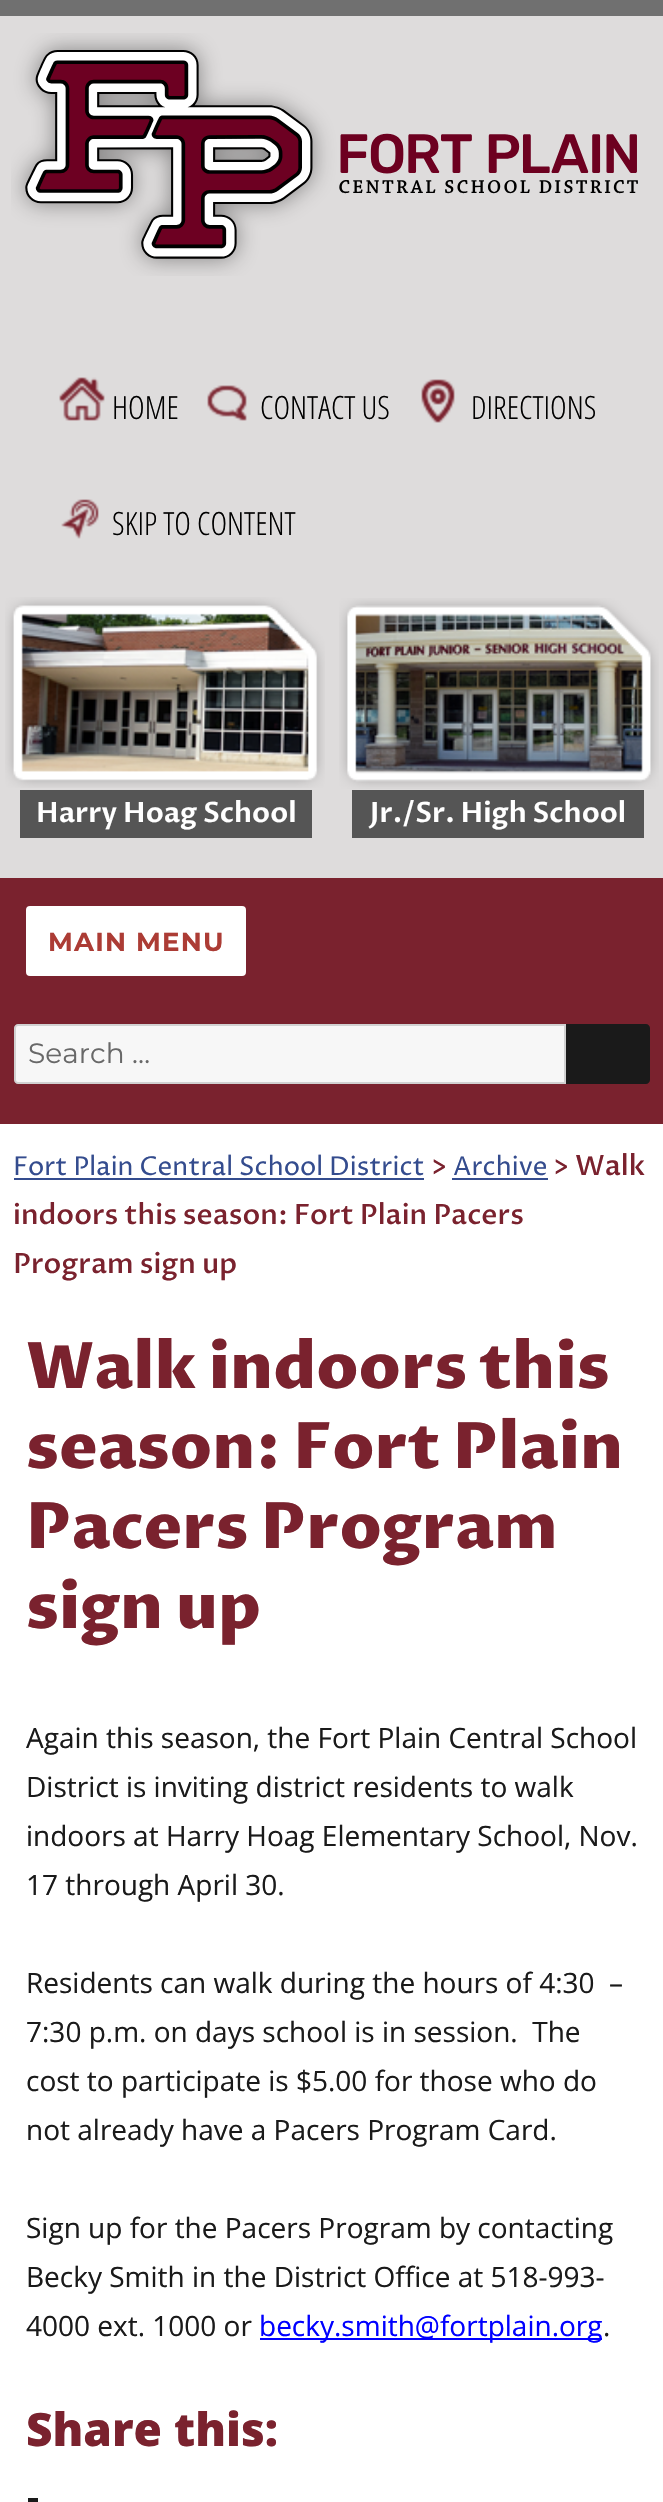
#include "include/core/SkBlurTypes.h"
#include "include/core/SkCanvas.h"
#include "include/core/SkData.h"
#include "include/core/SkFont.h"
#include "include/core/SkFontMgr.h"
#include "include/core/SkImage.h"
#include "include/core/SkMaskFilter.h"
#include "include/core/SkPaint.h"
#include "include/core/SkPathBuilder.h"
#include "include/core/SkTextBlob.h"
#include "include/effects/SkDashPathEffect.h"
#include "include/effects/SkGradientShader.h"
#include "include/utils/SkParsePath.h"

extern sk_sp<SkFontMgr> fontMgr;

static SkFont font(const char* family, int weight, float size, bool italic = false) {
    SkFontStyle style(weight, SkFontStyle::kNormal_Width,
        italic ? SkFontStyle::kItalic_Slant : SkFontStyle::kUpright_Slant);
    SkFont result(fontMgr->matchFamilyStyle(family, style), size);
    result.setSubpixel(true);
    return result;
}

static void drawLabel(SkCanvas* canvas, const char* s, float x, float y, const SkFont& font, SkColor color) {
    SkPaint ink(SkColor4f::FromColor(color));
    ink.setAntiAlias(true);
    canvas->drawString(s, x, y, font, ink);
}

static void drawTracked(SkCanvas* canvas, const char* s, float x, float y, const SkFont& font, const SkPaint& ink, float letter, float word) {
    std::vector<SkGlyphID> glyphs(font.countText(s, strlen(s), SkTextEncoding::kUTF8));
    std::vector<float> xs(glyphs.size());
    font.textToGlyphs(s, strlen(s), SkTextEncoding::kUTF8, glyphs);
    font.getXPos(glyphs, xs, x);
    float extra = 0;
    for (size_t i = 0; i < glyphs.size(); i++) {
        xs[i] += extra;
        extra += letter + word * (glyphs[i] == font.unicharToGlyph(' '));
    }
    canvas->drawTextBlob(SkTextBlob::MakeFromPosHGlyphs(glyphs, xs, y, font), 0, 0, ink);
}

static void fillRect(SkCanvas* canvas, float x, float y, float w, float h, SkColor color) {
    SkPaint ink(SkColor4f::FromColor(color));
    ink.setAntiAlias(true);
    canvas->drawRect(SkRect::MakeXYWH(x, y, w, h), ink);
}

static void drawPhoto(SkCanvas* canvas, const char* path, float x, float y, float w, float h) {
    auto image = SkImages::DeferredFromEncodedData(SkData::MakeFromFileName(path));
    canvas->drawImageRect(image, SkRect::MakeXYWH(x, y, w, h), SkSamplingOptions());
}

static SkPath parsePath(const char* data, bool evenOdd = false) {
    SkPath result = *SkParsePath::FromSVGString(data);
    if (evenOdd) result.setFillType(SkPathFillType::kEvenOdd);
    return result;
}

void draw(SkCanvas* canvas) {
    SkPaint paint;
    paint.setAntiAlias(true);
    canvas->clear(0xFF7A222E);
    fillRect(canvas, 0, 16, 663, 862, 0xFFDEDCDC);
    fillRect(canvas, 0, 0, 663, 16, 0xFF707070);
    drawPhoto(canvas, "assets/img1.png", 11, 33, 627, 243);
    drawPhoto(canvas, "assets/img2.png", 59, 377, 46, 44);
    SkFont font1 = font("Open Sans Condensed", 300, 32);
    drawLabel(canvas, "HOME", 112, 419, font1, 0xFF000000);
    drawPhoto(canvas, "assets/img3.png", 207, 385, 40, 36);
    drawLabel(canvas, "CONTACT US", 260, 419, font1, 0xFF000000);
    drawPhoto(canvas, "assets/img4.png", 421, 379, 34, 44);
    drawLabel(canvas, "DIRECTIONS", 471, 419, font1, 0xFF000000);
    drawPhoto(canvas, "assets/img5.png", 61, 499, 38, 40);
    drawLabel(canvas, "SKIP TO CONTENT", 112, 535, font1, 0xFF000000);
    drawPhoto(canvas, "assets/img6.png", 5, 597, 320, 191);
    fillRect(canvas, 20, 790, 292, 48, 0xFF555555);
    SkFont font2 = font("Proza Libre", 600, 28);
    drawLabel(canvas, "Harry Hoag School", 36, 822, font2, 0xFFFFFFFF);
    drawPhoto(canvas, "assets/img7.png", 339, 598, 320, 191);
    fillRect(canvas, 352, 790, 292, 48, 0xFF555555);
    drawLabel(canvas, "Jr./Sr. High School", 370, 822, font2, 0xFFFFFFFF);
    paint.setColor(0xFFFFFFFF);
    canvas->drawRoundRect(SkRect::MakeXYWH(27, 907, 218, 68), 3, 3, paint);
    paint.setStroke(true);
    paint.setStrokeWidth(2);
    canvas->drawRoundRect(SkRect::MakeXYWH(27, 907, 218, 68), 3, 3, paint);
    SkFont font3 = font("Montserrat", 100, 26);
    paint.setStroke(false);
    paint.setColor(0xFFAC3C35);
    drawTracked(canvas, "MAIN MENU", 48, 951, font3, paint, 1.25f, 0);
    paint.setColor(0xFFF7F7F7);
    canvas->drawPath(parsePath("M18 1025H565V1083H18C16.5 1083 15 1081.5 15 1080V1028C15 1026.5 16.5 1025 18 1025Z"), paint);
    paint.setStroke(true);
    paint.setColor(0xFFD1D1D1);
    canvas->drawPath(parsePath("M18 1025H565V1083H18C16.5 1083 15 1081.5 15 1080V1028C15 1026.5 16.5 1025 18 1025Z"), paint);
    SkFont font4 = font("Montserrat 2", 100, 28);
    drawLabel(canvas, "Search …", 28, 1063, font4, 0xFF686868);
    paint.setStroke(false);
    paint.setColor(0xFF1A1A1A);
    canvas->drawPath(parsePath("M566 1024H646C648 1024 650 1026 650 1028V1080C650 1082 648 1084 646 1084H566Z"), paint);
    fillRect(canvas, 0, 1124, 663, 1378, 0xFFFFFFFF);
    SkFont font5 = font("Proza Libre", 400, 26);
    drawLabel(canvas, "Fort Plain Central School District", 13, 1175, font5, 0xFF344C8E);
    fillRect(canvas, 14, 1178, 410, 2, 0xFF344C8E);
    SkFont font6 = font("Proza Libre", 500, 28);
    drawLabel(canvas, ">", 431, 1175, font6, 0xFF7A222E);
    drawLabel(canvas, "Archive", 453, 1175, font5, 0xFF344C8E);
    fillRect(canvas, 452, 1178, 96, 2, 0xFF344C8E);
    drawLabel(canvas, "> Walk", 553, 1175, font6, 0xFF7A222E);
    drawLabel(canvas, "indoors this season: Fort Plain Pacers", 13, 1224, font6, 0xFF7A222E);
    drawLabel(canvas, "Program sign up", 13, 1273, font6, 0xFF7A222E);
    SkFont font7 = font("Proza Libre", 800, 64);
    drawLabel(canvas, "Walk indoors this", 26, 1388, font7, 0xFF7A222E);
    drawLabel(canvas, "season: Fort Plain", 26, 1468, font7, 0xFF7A222E);
    drawLabel(canvas, "Pacers Program", 26, 1548, font7, 0xFF7A222E);
    drawLabel(canvas, "sign up", 26, 1628, font7, 0xFF7A222E);
    SkFont font8 = font("Open Sans", 400, 28);
    drawLabel(canvas, "Again this season, the Fort Plain Central School", 26, 1748, font8, 0xFF1A1A1A);
    drawLabel(canvas, "District is inviting district residents to walk", 26, 1797, font8, 0xFF1A1A1A);
    drawLabel(canvas, "indoors at Harry Hoag Elementary School, Nov.", 26, 1846, font8, 0xFF1A1A1A);
    drawLabel(canvas, "17 through April 30.", 26, 1895, font8, 0xFF1A1A1A);
    drawLabel(canvas, "Residents can walk during the hours of 4:30  –", 26, 1993, font8, 0xFF1A1A1A);
    drawLabel(canvas, "7:30 p.m. on days school is in session.  The", 26, 2042, font8, 0xFF1A1A1A);
    drawLabel(canvas, "cost to participate is $5.00 for those who do", 26, 2091, font8, 0xFF1A1A1A);
    drawLabel(canvas, "not already have a Pacers Program Card.", 26, 2140, font8, 0xFF1A1A1A);
    drawLabel(canvas, "Sign up for the Pacers Program by contacting", 26, 2238, font8, 0xFF1A1A1A);
    drawLabel(canvas, "Becky Smith in the District Office at 518-993-", 26, 2287, font8, 0xFF1A1A1A);
    drawLabel(canvas, "4000 ext. 1000 or", 26, 2336, font8, 0xFF1A1A1A);
    fillRect(canvas, 260, 2338, 342, 2, 0xFF0000FF);
    drawLabel(canvas, "becky.smith@fortplain.org", 259, 2336, font8, 0xFF0000FF);
    drawLabel(canvas, ".", 603, 2336, font8, 0xFF1A1A1A);
    SkFont font9 = font("Open Sans", 800, 46);
    drawLabel(canvas, "Share this:", 26, 2446, font9, 0xFF7A222E);
    fillRect(canvas, 28, 2498, 10, 4, 0xFF1A1A1A);
}
